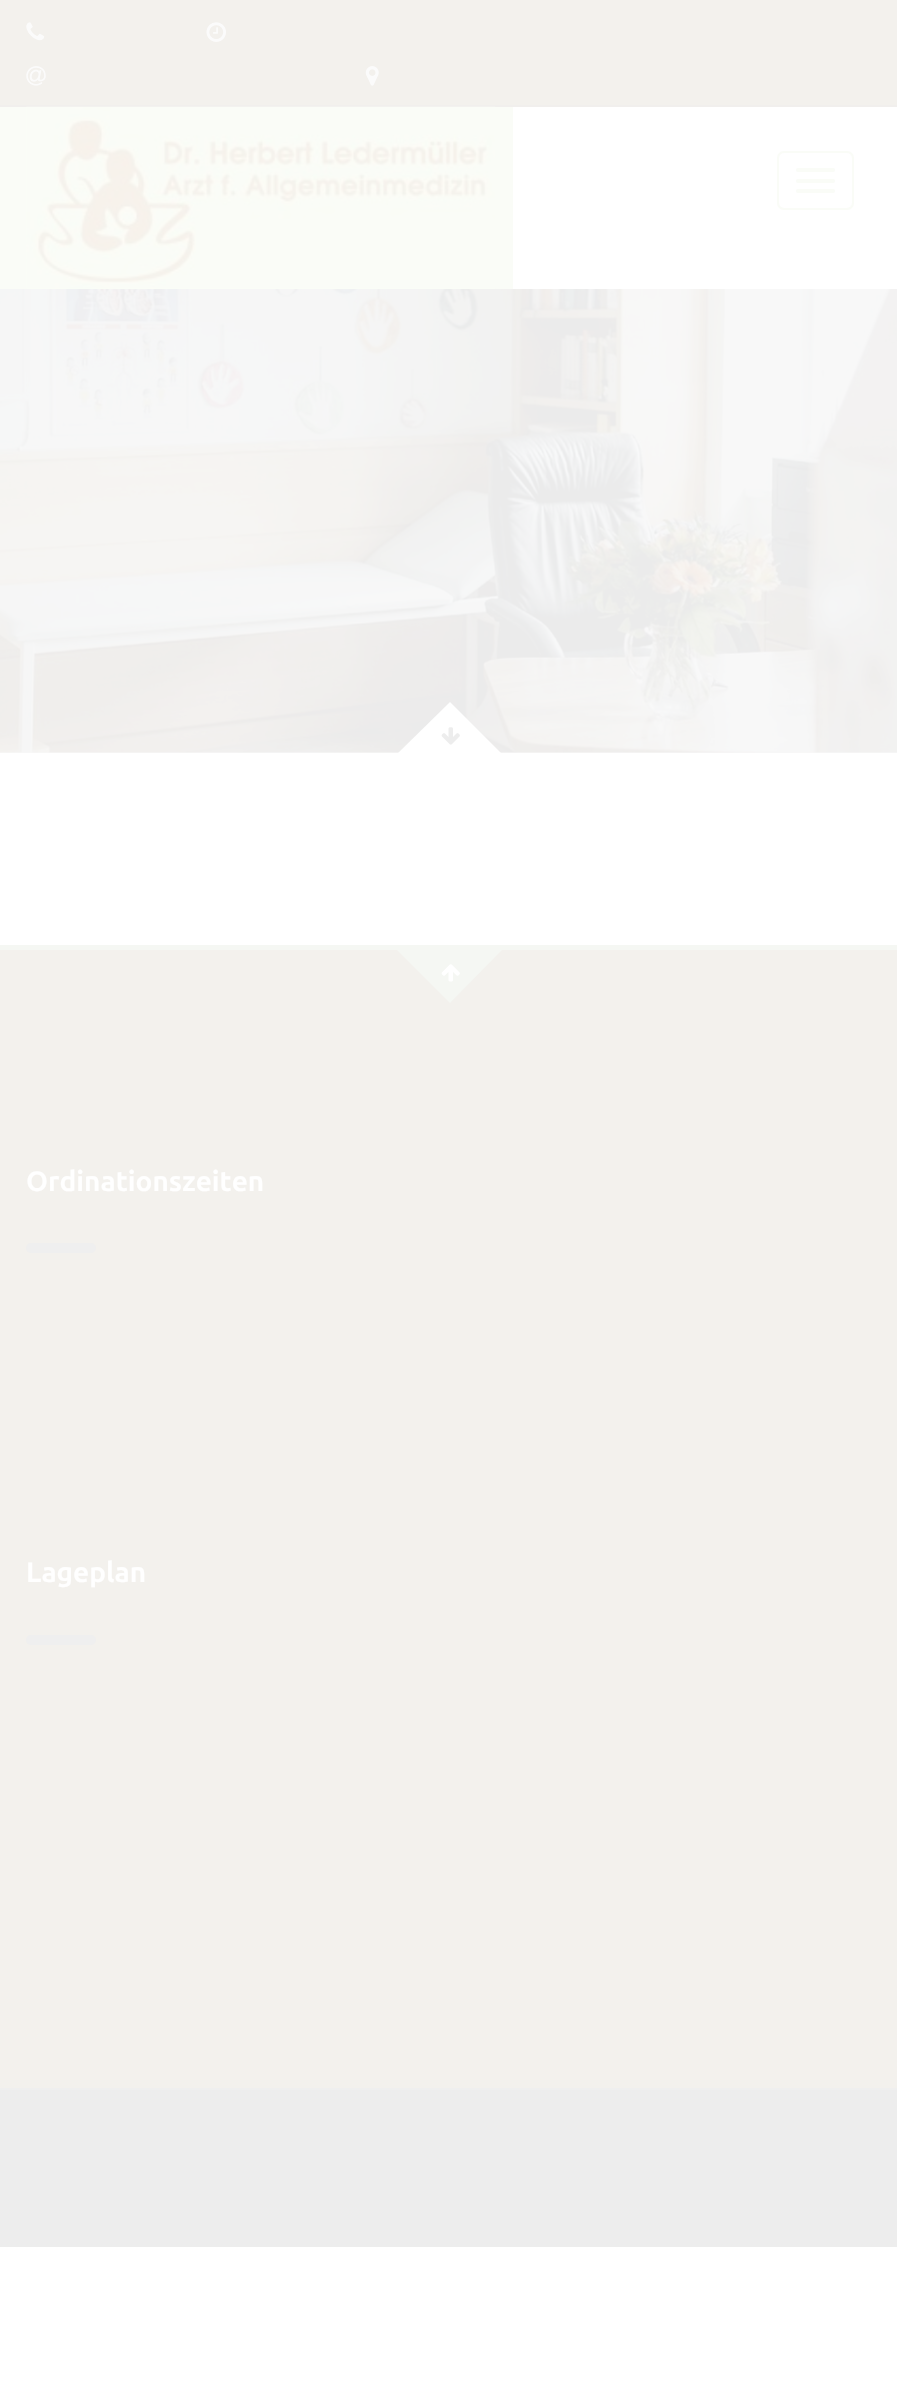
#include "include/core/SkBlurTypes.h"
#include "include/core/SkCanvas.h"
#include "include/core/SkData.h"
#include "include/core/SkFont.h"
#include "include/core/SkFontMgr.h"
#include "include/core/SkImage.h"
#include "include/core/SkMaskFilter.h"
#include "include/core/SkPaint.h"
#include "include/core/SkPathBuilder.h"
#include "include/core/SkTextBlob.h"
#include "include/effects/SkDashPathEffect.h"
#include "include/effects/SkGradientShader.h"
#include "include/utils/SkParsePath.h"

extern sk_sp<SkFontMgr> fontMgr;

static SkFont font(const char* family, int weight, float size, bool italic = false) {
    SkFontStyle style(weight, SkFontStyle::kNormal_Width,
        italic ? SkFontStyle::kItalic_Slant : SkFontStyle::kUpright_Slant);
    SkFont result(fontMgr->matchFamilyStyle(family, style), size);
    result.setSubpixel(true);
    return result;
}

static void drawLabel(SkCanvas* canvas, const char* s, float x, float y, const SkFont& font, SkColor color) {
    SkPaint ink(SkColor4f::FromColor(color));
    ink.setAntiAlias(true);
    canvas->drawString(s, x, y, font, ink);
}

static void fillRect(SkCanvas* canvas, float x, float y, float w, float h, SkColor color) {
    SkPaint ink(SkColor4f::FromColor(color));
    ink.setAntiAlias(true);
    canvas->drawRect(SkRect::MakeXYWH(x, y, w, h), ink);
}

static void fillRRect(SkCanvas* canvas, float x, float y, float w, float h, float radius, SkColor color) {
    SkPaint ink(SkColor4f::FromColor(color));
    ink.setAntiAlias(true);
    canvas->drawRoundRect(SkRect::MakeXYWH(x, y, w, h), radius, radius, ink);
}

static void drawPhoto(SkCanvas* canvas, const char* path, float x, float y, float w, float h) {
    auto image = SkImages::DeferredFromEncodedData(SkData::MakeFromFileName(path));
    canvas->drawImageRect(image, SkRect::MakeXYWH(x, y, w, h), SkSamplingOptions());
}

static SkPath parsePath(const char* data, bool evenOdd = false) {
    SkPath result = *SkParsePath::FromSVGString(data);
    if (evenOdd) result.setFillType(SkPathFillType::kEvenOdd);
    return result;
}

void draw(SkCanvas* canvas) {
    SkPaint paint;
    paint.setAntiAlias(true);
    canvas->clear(0xFFFFFFFF);
    fillRect(canvas, 0, 752, 897, 1, 0xFFF9F9F9);
    fillRect(canvas, 0, 0, 897, 105, 0xFFF3F1ED);
    fillRect(canvas, 0, 105, 897, 2, 0xFFF1EFED);
    drawPhoto(canvas, "assets/img1.png", 26, 22, 19, 19);
    drawPhoto(canvas, "assets/img2.png", 206, 22, 20, 20);
    drawPhoto(canvas, "assets/img3.png", 26, 66, 20, 20);
    drawPhoto(canvas, "assets/img4.png", 365, 66, 14, 20);
    fillRect(canvas, 0, 107, 513, 182, 0xFFFAFCF7);
    drawPhoto(canvas, "assets/img5.png", 26, 106, 470, 183);
    paint.setStroke(true);
    paint.setStrokeWidth(2);
    paint.setColor(0xFFFAFCF7);
    canvas->drawRoundRect(SkRect::MakeXYWH(778, 152, 75, 57), 6, 6, paint);
    fillRRect(canvas, 796, 168, 39, 4, 2, 0xFFFAFCF7);
    fillRRect(canvas, 796, 179, 39, 4, 2, 0xFFFAFCF7);
    fillRRect(canvas, 796, 189, 39, 4, 2, 0xFFFAFCF7);
    drawPhoto(canvas, "assets/img6.png", 0, 289, 897, 464);
    paint.setStroke(false);
    paint.setColor(0xFFFFFFFF);
    canvas->drawPath(parsePath("M502 754H397L450 702Z"), paint);
    drawPhoto(canvas, "assets/img7.png", 441, 727, 19, 18);
    fillRect(canvas, 0, 945, 897, 5, 0xFFF5F7F3);
    fillRect(canvas, 0, 950, 897, 1138, 0xFFF3F1ED);
    paint.setColor(0xFFF5F7F3);
    canvas->drawPath(parsePath("M397 950H502L450 1003Z"), paint);
    drawPhoto(canvas, "assets/img8.png", 441, 964, 19, 18);
    SkFont font1 = font("Ubuntu", 700, 28);
    drawLabel(canvas, "Ordinationszeiten", 26, 1191, font1, 0xFFFFFFFF);
    fillRRect(canvas, 26, 1243, 70, 10, 5, 0xFFEFEFEF);
    drawLabel(canvas, "Lageplan", 26, 1582, font1, 0xFFFFFFFF);
    fillRRect(canvas, 26, 1635, 70, 10, 5, 0xFFEFEFEF);
    fillRect(canvas, 0, 2090, 897, 157, 0xFFEDEDED);
    fillRect(canvas, 0, 2088, 897, 2, 0xFFEFEFEF);
}
